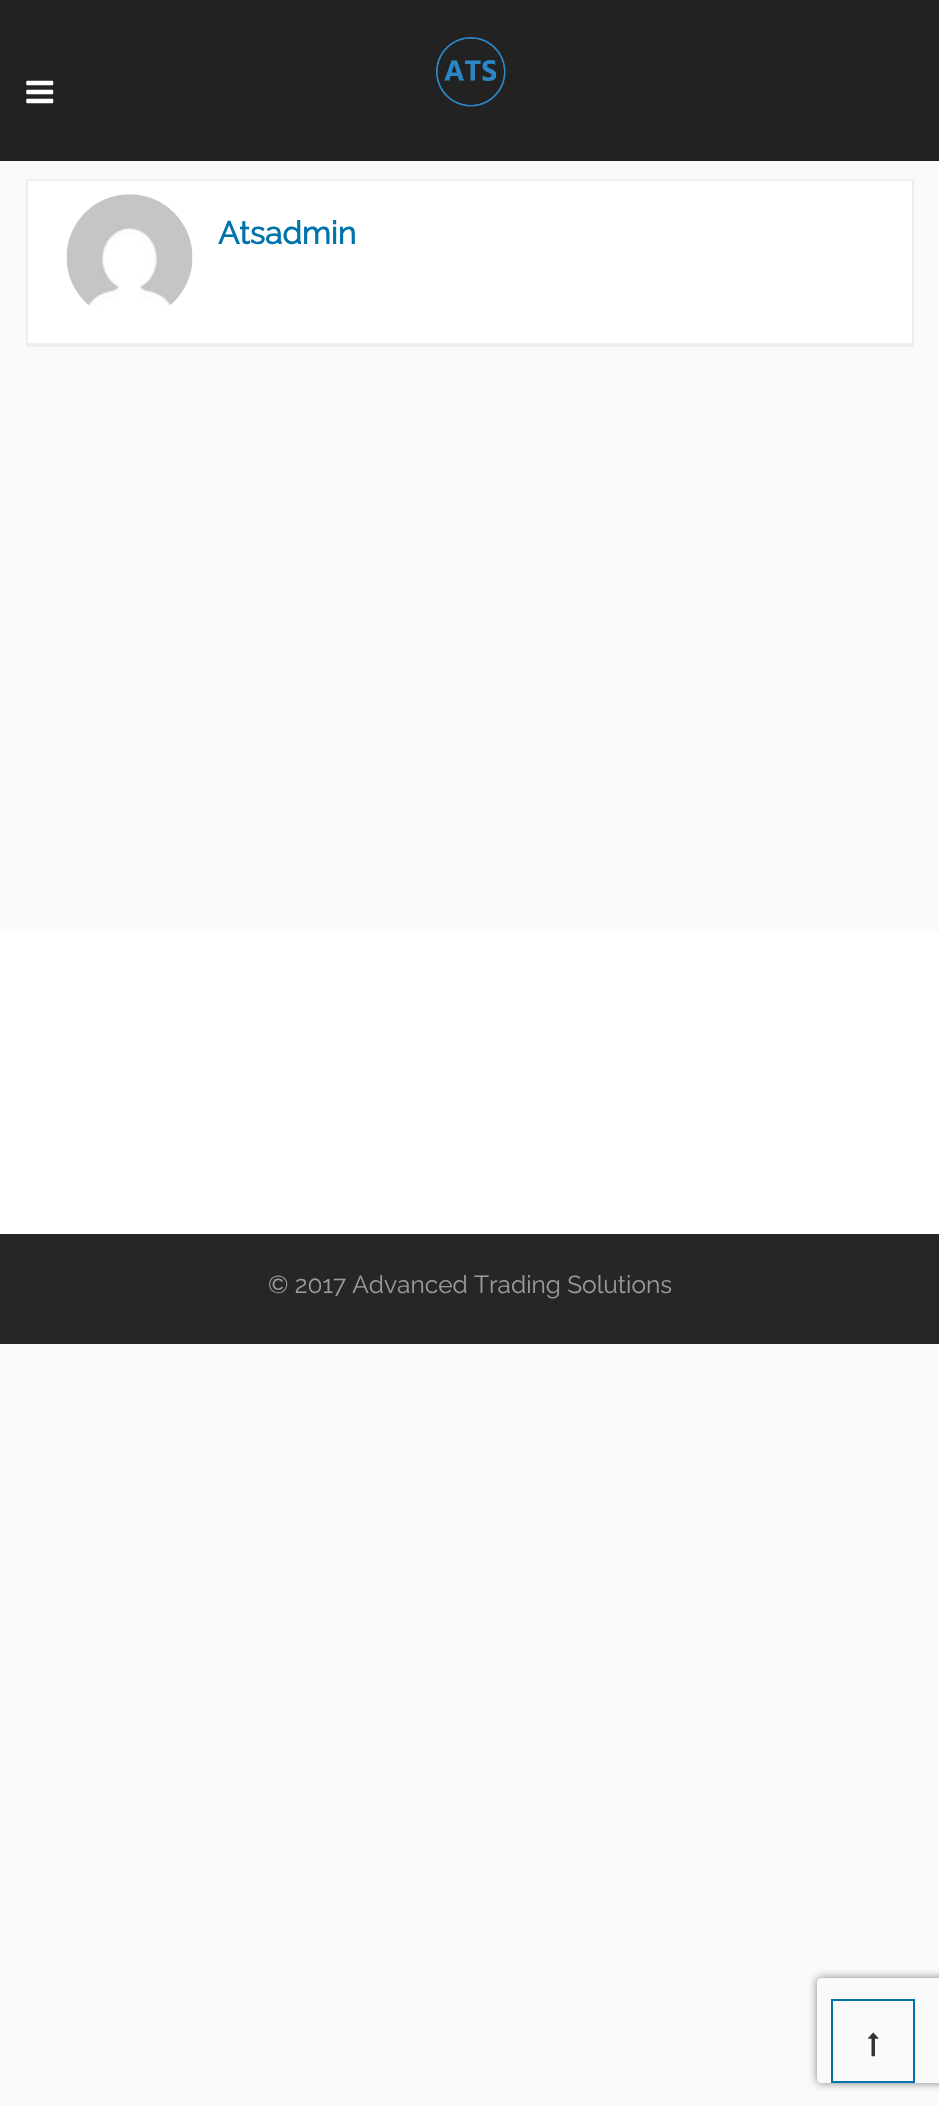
#include "include/core/SkBlurTypes.h"
#include "include/core/SkCanvas.h"
#include "include/core/SkData.h"
#include "include/core/SkFont.h"
#include "include/core/SkFontMgr.h"
#include "include/core/SkImage.h"
#include "include/core/SkMaskFilter.h"
#include "include/core/SkPaint.h"
#include "include/core/SkPathBuilder.h"
#include "include/core/SkTextBlob.h"
#include "include/effects/SkDashPathEffect.h"
#include "include/effects/SkGradientShader.h"
#include "include/utils/SkParsePath.h"

extern sk_sp<SkFontMgr> fontMgr;

static SkFont font(const char* family, int weight, float size, bool italic = false) {
    SkFontStyle style(weight, SkFontStyle::kNormal_Width,
        italic ? SkFontStyle::kItalic_Slant : SkFontStyle::kUpright_Slant);
    SkFont result(fontMgr->matchFamilyStyle(family, style), size);
    result.setSubpixel(true);
    return result;
}

static void drawLabel(SkCanvas* canvas, const char* s, float x, float y, const SkFont& font, SkColor color) {
    SkPaint ink(SkColor4f::FromColor(color));
    ink.setAntiAlias(true);
    canvas->drawString(s, x, y, font, ink);
}

static void fillRect(SkCanvas* canvas, float x, float y, float w, float h, SkColor color) {
    SkPaint ink(SkColor4f::FromColor(color));
    ink.setAntiAlias(true);
    canvas->drawRect(SkRect::MakeXYWH(x, y, w, h), ink);
}

static void drawPhoto(SkCanvas* canvas, const char* path, float x, float y, float w, float h) {
    auto image = SkImages::DeferredFromEncodedData(SkData::MakeFromFileName(path));
    canvas->drawImageRect(image, SkRect::MakeXYWH(x, y, w, h), SkSamplingOptions());
}

static SkPath parsePath(const char* data, bool evenOdd = false) {
    SkPath result = *SkParsePath::FromSVGString(data);
    if (evenOdd) result.setFillType(SkPathFillType::kEvenOdd);
    return result;
}

void draw(SkCanvas* canvas) {
    SkPaint paint;
    paint.setAntiAlias(true);
    canvas->clear(0xFFFAFAFA);
    fillRect(canvas, 0, 0, 939, 161, 0xFF222222);
    drawPhoto(canvas, "assets/img1.png", 26, 80, 28, 24);
    drawPhoto(canvas, "assets/img2.png", 436, 37, 70, 70);
    fillRect(canvas, 28, 181, 884, 162, 0xFFFFFFFF);
    fillRect(canvas, 26, 179, 888, 2, 0xFFEEEEEE);
    fillRect(canvas, 912, 179, 2, 168, 0xFFEEEEEE);
    fillRect(canvas, 26, 343, 888, 4, 0xFFEEEEEE);
    fillRect(canvas, 26, 179, 2, 168, 0xFFEEEEEE);
    drawPhoto(canvas, "assets/img3.png", 66, 194, 127, 113);
    SkFont font1 = font("Raleway", 700, 31.5f);
    drawLabel(canvas, "Atsadmin", 218, 244, font1, 0xFF0073AA);
    canvas->save();
    canvas->clipPath(parsePath("M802 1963H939V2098H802ZM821 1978H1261C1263 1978 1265 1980 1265 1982V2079C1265 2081 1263 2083 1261 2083H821C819 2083 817 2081 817 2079V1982C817 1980 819 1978 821 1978Z", true), true);
    paint.setColor(0xFF808080);
    paint.setMaskFilter(SkMaskFilter::MakeBlur(kNormal_SkBlurStyle, 4.5f));
    canvas->drawRoundRect(SkRect::MakeXYWH(817, 1978, 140, 105), 4, 4, paint);
    paint.setMaskFilter(nullptr);
    canvas->restore();
    paint.setStroke(true);
    paint.setStrokeWidth(2);
    paint.setColor(0xFF0073AA);
    canvas->drawRect(SkRect::MakeXYWH(832, 2000, 82, 82), paint);
    drawPhoto(canvas, "assets/img4.png", 868, 2032, 11, 25);
    fillRect(canvas, 0, 931, 939, 303, 0xFFFFFFFF);
    fillRect(canvas, 0, 1234, 939, 110, 0xFF262626);
    SkFont font2 = font("Raleway", 100, 24.5f);
    drawLabel(canvas, "© 2017 Advanced Trading Solutions", 268, 1293, font2, 0xFF999999);
}
